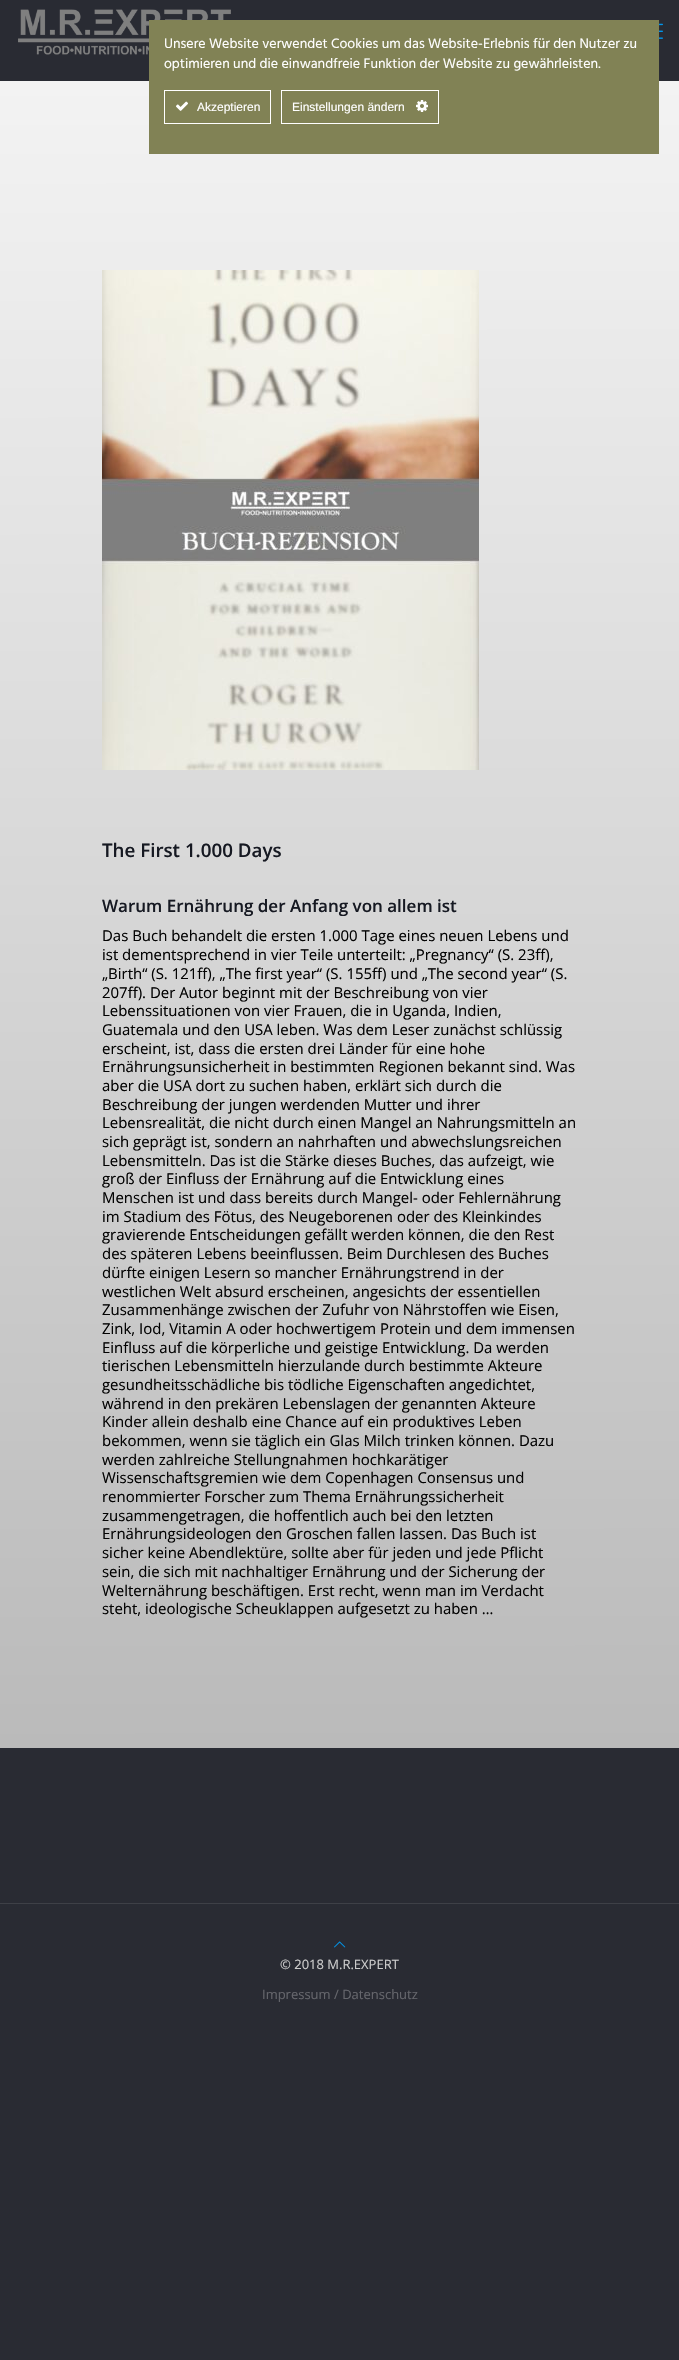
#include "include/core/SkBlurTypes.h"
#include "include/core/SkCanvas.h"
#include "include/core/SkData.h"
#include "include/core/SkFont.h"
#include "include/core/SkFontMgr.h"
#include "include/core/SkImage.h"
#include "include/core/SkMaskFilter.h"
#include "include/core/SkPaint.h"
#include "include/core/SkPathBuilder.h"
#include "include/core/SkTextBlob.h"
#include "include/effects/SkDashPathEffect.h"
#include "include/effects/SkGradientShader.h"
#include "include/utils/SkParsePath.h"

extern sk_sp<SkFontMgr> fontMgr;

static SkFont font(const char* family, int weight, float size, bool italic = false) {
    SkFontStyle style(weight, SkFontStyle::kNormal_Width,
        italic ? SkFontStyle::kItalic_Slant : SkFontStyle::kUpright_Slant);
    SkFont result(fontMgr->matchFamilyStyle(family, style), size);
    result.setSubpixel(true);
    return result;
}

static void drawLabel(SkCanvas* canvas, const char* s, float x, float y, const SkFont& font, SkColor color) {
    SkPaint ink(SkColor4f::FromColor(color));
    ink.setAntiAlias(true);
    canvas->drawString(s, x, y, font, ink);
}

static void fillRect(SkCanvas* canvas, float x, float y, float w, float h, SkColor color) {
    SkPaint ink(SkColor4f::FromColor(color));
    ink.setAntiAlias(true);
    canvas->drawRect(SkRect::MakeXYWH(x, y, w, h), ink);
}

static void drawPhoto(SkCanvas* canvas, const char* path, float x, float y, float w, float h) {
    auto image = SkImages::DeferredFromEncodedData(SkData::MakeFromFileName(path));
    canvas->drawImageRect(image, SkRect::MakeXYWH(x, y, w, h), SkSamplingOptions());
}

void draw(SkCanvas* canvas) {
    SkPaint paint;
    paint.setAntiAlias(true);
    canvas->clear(0xFF292B33);
    drawPhoto(canvas, "assets/img3.png", 18, 9, 213, 46);
    {
        const SkColor colors[] = {0xFFF3F3F3, 0xFFBABABA};
        const float stops[] = {0, 1};
        const SkPoint ends[] = {{339, 81}, {340, 1748}};
        paint.setShader(SkGradientShader::MakeLinear(ends, colors, stops, 2, SkTileMode::kClamp));
        paint.setAlpha(255);
    }
    canvas->drawRect(SkRect::MakeXYWH(0, 81, 679, 1667), paint);
    fillRect(canvas, 149, 20, 510, 134, 0xFF818255);
    SkFont font1 = font("Hind", 400, 14);
    drawLabel(canvas, "Unsere Website verwendet Cookies um das Website-Erlebnis für den Nutzer zu", 164, 48, font1, 0xFFFFFFFF);
    drawLabel(canvas, "optimieren und die einwandfreie Funktion der Website zu gewährleisten.", 164, 68, font1, 0xFFFFFFFF);
    paint.setStroke(true);
    paint.setStrokeWidth(1);
    paint.setShader(nullptr);
    paint.setColor(0xFFFFFFFF);
    canvas->drawRect(SkRect::MakeXYWH(164.5f, 90.5f, 106, 33), paint);
    drawPhoto(canvas, "assets/img1.png", 176, 101, 12, 10);
    SkFont font2 = font("Liberation Sans", 400, 12);
    drawLabel(canvas, "Akzeptieren", 197, 111, font2, 0xFFFFFFFF);
    canvas->drawRect(SkRect::MakeXYWH(281.5f, 90.5f, 157, 33), paint);
    drawLabel(canvas, "Einstellungen ändern", 292, 111, font2, 0xFFFFFFFF);
    drawPhoto(canvas, "assets/img2.png", 416, 100, 12, 12);
    drawPhoto(canvas, "assets/img4.png", 659, 23, 4, 16);
    drawPhoto(canvas, "assets/img5.png", 102, 270, 377, 500);
    SkFont font3 = font("Open Sans", 600, 18.75f);
    drawLabel(canvas, "The First 1.000 Days", 102, 857, font3, 0xFF161922);
    SkFont font4 = font("Open Sans", 600, 17);
    drawLabel(canvas, "Warum Ernährung der Anfang von allem ist", 102, 912, font4, 0xFF161922);
    SkFont font5 = font("Open Sans", 400, 14.95f);
    drawLabel(canvas, "Das Buch behandelt die ersten 1.000 Tage eines neuen Lebens und", 102, 941, font5, 0xFF020202);
    drawLabel(canvas, "ist dementsprechend in vier Teile unterteilt: „Pregnancy“ (S. 23ff),", 102, 960, font5, 0xFF020202);
    drawLabel(canvas, "„Birth“ (S. 121ff), „The first year“ (S. 155ff) und „The second year“ (S.", 102, 979, font5, 0xFF020202);
    drawLabel(canvas, "207ff). Der Autor beginnt mit der Beschreibung von vier", 102, 998, font5, 0xFF020202);
    drawLabel(canvas, "Lebenssituationen von vier Frauen, die in Uganda, Indien,", 102, 1016, font5, 0xFF020202);
    drawLabel(canvas, "Guatemala und den USA leben. Was dem Leser zunächst schlüssig", 102, 1035, font5, 0xFF020202);
    drawLabel(canvas, "erscheint, ist, dass die ersten drei Länder für eine hohe", 102, 1054, font5, 0xFF020202);
    drawLabel(canvas, "Ernährungsunsicherheit in bestimmten Regionen bekannt sind. Was", 102, 1072, font5, 0xFF020202);
    drawLabel(canvas, "aber die USA dort zu suchen haben, erklärt sich durch die", 102, 1091, font5, 0xFF020202);
    drawLabel(canvas, "Beschreibung der jungen werdenden Mutter und ihrer", 102, 1110, font5, 0xFF020202);
    drawLabel(canvas, "Lebensrealität, die nicht durch einen Mangel an Nahrungsmitteln an", 102, 1128, font5, 0xFF020202);
    drawLabel(canvas, "sich geprägt ist, sondern an nahrhaften und abwechslungsreichen", 102, 1147, font5, 0xFF020202);
    drawLabel(canvas, "Lebensmitteln. Das ist die Stärke dieses Buches, das aufzeigt, wie", 102, 1166, font5, 0xFF020202);
    drawLabel(canvas, "groß der Einfluss der Ernährung auf die Entwicklung eines", 102, 1184, font5, 0xFF020202);
    drawLabel(canvas, "Menschen ist und dass bereits durch Mangel- oder Fehlernährung", 102, 1203, font5, 0xFF020202);
    drawLabel(canvas, "im Stadium des Fötus, des Neugeborenen oder des Kleinkindes", 102, 1222, font5, 0xFF020202);
    drawLabel(canvas, "gravierende Entscheidungen gefällt werden können, die den Rest", 102, 1240, font5, 0xFF020202);
    drawLabel(canvas, "des späteren Lebens beeinflussen. Beim Durchlesen des Buches", 102, 1259, font5, 0xFF020202);
    drawLabel(canvas, "dürfte einigen Lesern so mancher Ernährungstrend in der", 102, 1278, font5, 0xFF020202);
    drawLabel(canvas, "westlichen Welt absurd erscheinen, angesichts der essentiellen", 102, 1297, font5, 0xFF020202);
    drawLabel(canvas, "Zusammenhänge zwischen der Zufuhr von Nährstoffen wie Eisen,", 102, 1315, font5, 0xFF020202);
    drawLabel(canvas, "Zink, Iod, Vitamin A oder hochwertigem Protein und dem immensen", 102, 1334, font5, 0xFF020202);
    drawLabel(canvas, "Einfluss auf die körperliche und geistige Entwicklung. Da werden", 102, 1353, font5, 0xFF020202);
    drawLabel(canvas, "tierischen Lebensmitteln hierzulande durch bestimmte Akteure", 102, 1371, font5, 0xFF020202);
    drawLabel(canvas, "gesundheitsschädliche bis tödliche Eigenschaften angedichtet,", 102, 1390, font5, 0xFF020202);
    drawLabel(canvas, "während in den prekären Lebenslagen der genannten Akteure", 102, 1409, font5, 0xFF020202);
    drawLabel(canvas, "Kinder allein deshalb eine Chance auf ein produktives Leben", 102, 1427, font5, 0xFF020202);
    drawLabel(canvas, "bekommen, wenn sie täglich ein Glas Milch trinken können. Dazu", 102, 1446, font5, 0xFF020202);
    drawLabel(canvas, "werden zahlreiche Stellungnahmen hochkarätiger", 102, 1465, font5, 0xFF020202);
    drawLabel(canvas, "Wissenschaftsgremien wie dem Copenhagen Consensus und", 102, 1483, font5, 0xFF020202);
    drawLabel(canvas, "renommierter Forscher zum Thema Ernährungssicherheit", 102, 1502, font5, 0xFF020202);
    drawLabel(canvas, "zusammengetragen, die hoffentlich auch bei den letzten", 102, 1521, font5, 0xFF020202);
    drawLabel(canvas, "Ernährungsideologen den Groschen fallen lassen. Das Buch ist", 102, 1539, font5, 0xFF020202);
    drawLabel(canvas, "sicher keine Abendlektüre, sollte aber für jeden und jede Pflicht", 102, 1558, font5, 0xFF020202);
    drawLabel(canvas, "sein, die sich mit nachhaltiger Ernährung und der Sicherung der", 102, 1577, font5, 0xFF020202);
    drawLabel(canvas, "Welternährung beschäftigen. Erst recht, wenn man im Verdacht", 102, 1596, font5, 0xFF020202);
    drawLabel(canvas, "steht, ideologische Scheuklappen aufgesetzt zu haben …", 102, 1614, font5, 0xFF020202);
    fillRect(canvas, 0, 1903, 679, 1, 0xFF3E4047);
    drawPhoto(canvas, "assets/img6.png", 334, 1941, 12, 7);
    SkFont font6 = font("Open Sans", 400, 13);
    drawLabel(canvas, "© 2018 M.R.EXPERT", 280, 1969, font6, 0xFFCCCCCC);
    drawLabel(canvas, "Impressum / Datenschutz", 262, 1999, font6, 0xFF65666C);
}
